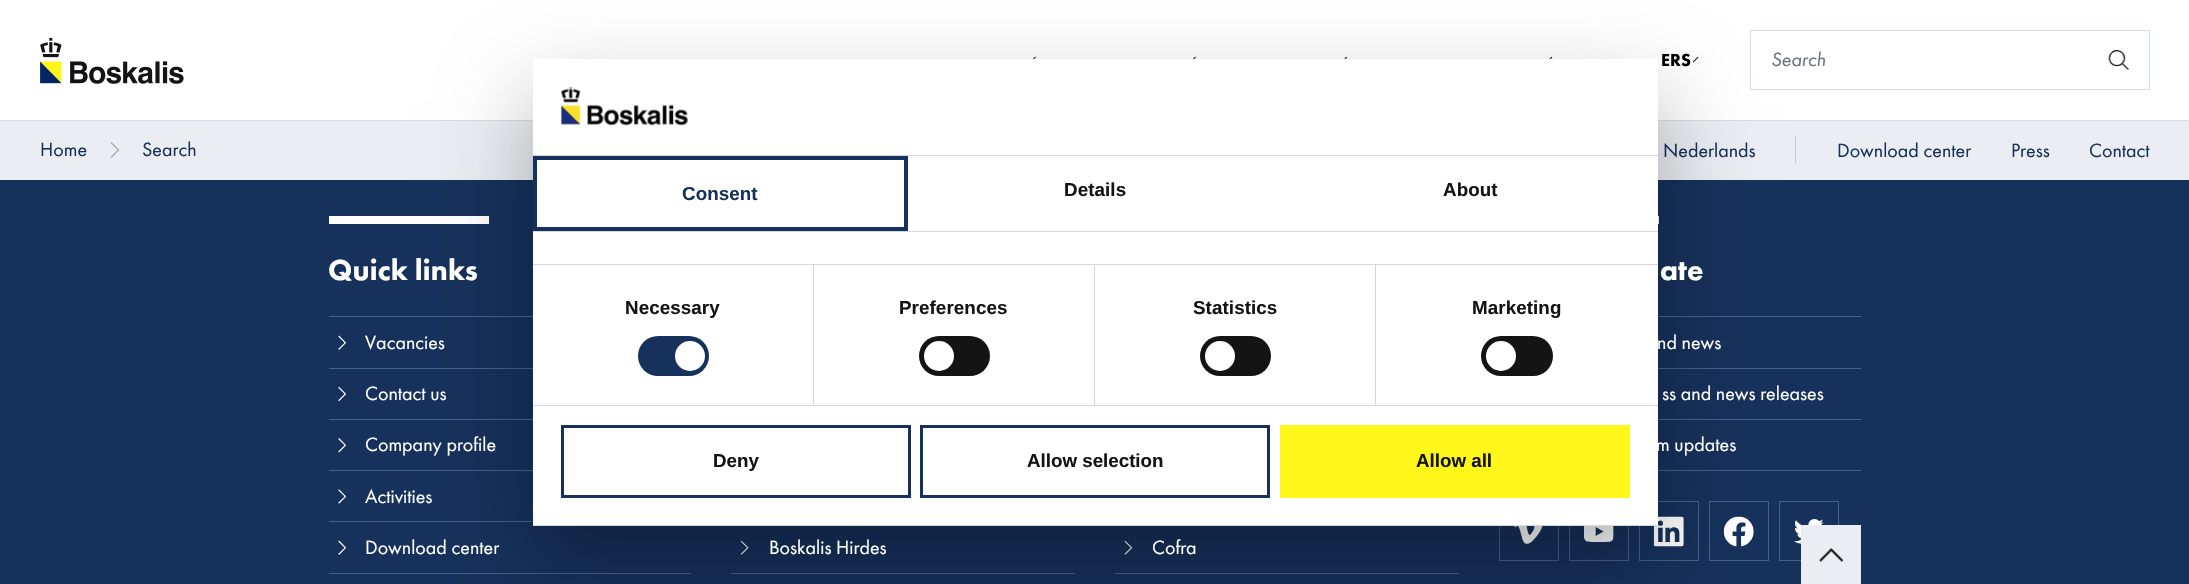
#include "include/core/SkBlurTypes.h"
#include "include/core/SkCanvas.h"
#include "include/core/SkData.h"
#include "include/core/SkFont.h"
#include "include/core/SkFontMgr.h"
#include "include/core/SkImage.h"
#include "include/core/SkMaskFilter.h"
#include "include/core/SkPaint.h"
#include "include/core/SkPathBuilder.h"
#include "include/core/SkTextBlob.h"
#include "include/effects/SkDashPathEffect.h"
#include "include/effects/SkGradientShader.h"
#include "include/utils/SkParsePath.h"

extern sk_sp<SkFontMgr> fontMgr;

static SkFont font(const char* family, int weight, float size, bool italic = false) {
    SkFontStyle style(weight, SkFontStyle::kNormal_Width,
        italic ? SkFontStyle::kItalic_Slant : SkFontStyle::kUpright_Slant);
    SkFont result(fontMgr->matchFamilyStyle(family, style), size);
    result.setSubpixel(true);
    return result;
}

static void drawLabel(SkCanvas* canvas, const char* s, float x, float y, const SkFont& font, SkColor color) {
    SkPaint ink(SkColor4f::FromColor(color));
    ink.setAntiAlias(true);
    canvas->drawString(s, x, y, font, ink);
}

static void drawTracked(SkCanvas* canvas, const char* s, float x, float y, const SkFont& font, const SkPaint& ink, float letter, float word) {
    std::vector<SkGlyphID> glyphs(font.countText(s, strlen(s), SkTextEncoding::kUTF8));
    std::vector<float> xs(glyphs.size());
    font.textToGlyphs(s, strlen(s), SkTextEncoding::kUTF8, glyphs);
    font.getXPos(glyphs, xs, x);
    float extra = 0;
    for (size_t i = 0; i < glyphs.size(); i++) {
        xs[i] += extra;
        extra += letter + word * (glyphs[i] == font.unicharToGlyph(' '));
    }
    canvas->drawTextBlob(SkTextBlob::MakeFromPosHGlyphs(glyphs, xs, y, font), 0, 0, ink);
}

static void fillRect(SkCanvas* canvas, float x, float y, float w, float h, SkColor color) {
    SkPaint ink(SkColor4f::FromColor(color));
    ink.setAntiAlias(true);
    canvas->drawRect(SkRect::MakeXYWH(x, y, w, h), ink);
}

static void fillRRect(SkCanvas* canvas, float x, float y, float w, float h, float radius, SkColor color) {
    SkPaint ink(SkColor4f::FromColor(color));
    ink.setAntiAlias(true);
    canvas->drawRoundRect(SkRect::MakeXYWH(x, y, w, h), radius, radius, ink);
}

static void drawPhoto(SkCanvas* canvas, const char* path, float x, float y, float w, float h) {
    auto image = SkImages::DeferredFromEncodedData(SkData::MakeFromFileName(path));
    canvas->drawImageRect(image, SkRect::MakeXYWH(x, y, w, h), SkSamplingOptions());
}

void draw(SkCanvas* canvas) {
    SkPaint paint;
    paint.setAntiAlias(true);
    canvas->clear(0xFF16315B);
    fillRect(canvas, 0, 120, 2189, 1, 0xFFD5DEE6);
    fillRect(canvas, 0, 0, 2189, 120, 0xFFFFFFFF);
    drawPhoto(canvas, "assets/img1.png", 40, 38, 144, 46);
    drawPhoto(canvas, "assets/img2.png", 1033, 56, 3, 3);
    drawPhoto(canvas, "assets/img3.png", 1193, 56, 3, 3);
    drawPhoto(canvas, "assets/img4.png", 1344, 56, 3, 3);
    drawPhoto(canvas, "assets/img5.png", 1549, 56, 4, 3);
    SkFont font1 = font("Futura PT", 900, 18);
    drawLabel(canvas, "ERS", 1661, 66, font1, 0xFF000000);
    drawPhoto(canvas, "assets/img6.png", 1693, 56, 6, 7);
    paint.setStroke(true);
    paint.setStrokeWidth(1);
    paint.setColor(0xFFD5DEE6);
    canvas->drawRect(SkRect::MakeXYWH(1750.5f, 30.5f, 399, 59), paint);
    SkFont font2 = font("Futura PT", 400, 20, true);
    drawLabel(canvas, "Search", 1771, 66, font2, 0xFF6B7280);
    drawPhoto(canvas, "assets/img7.png", 2108, 50, 21, 20);
    fillRect(canvas, 0, 121, 2189, 59, 0xFFEAEEF2);
    SkFont font3 = font("Futura PT", 400, 20);
    drawLabel(canvas, "Home", 40, 156, font3, 0xFF16315B);
    drawPhoto(canvas, "assets/img8.png", 110, 142, 10, 16);
    drawLabel(canvas, "Search", 142, 156, font3, 0xFF16315B);
    drawLabel(canvas, "Nederlands", 1663, 157, font3, 0xFF16315B);
    fillRect(canvas, 1795, 136, 1, 27, 0xFFC1C9D0);
    drawLabel(canvas, "Download center", 1837, 157, font3, 0xFF16315B);
    drawLabel(canvas, "Press", 2011, 157, font3, 0xFF16315B);
    drawLabel(canvas, "Contact", 2089, 157, font3, 0xFF16315B);
    fillRect(canvas, 329, 216, 160, 8, 0xFFFFFFFF);
    fillRect(canvas, 329, 316, 204, 1, 0xFF466188);
    fillRect(canvas, 329, 368, 204, 1, 0xFF466188);
    fillRect(canvas, 329, 419, 204, 1, 0xFF466188);
    fillRect(canvas, 329, 470, 204, 1, 0xFF466188);
    fillRect(canvas, 329, 521, 204, 1, 0xFF466188);
    fillRect(canvas, 329, 573, 362, 1, 0xFF466188);
    fillRect(canvas, 1658, 216, 1, 8, 0xFFFFFFFF);
    fillRect(canvas, 1658, 316, 203, 1, 0xFF466188);
    fillRect(canvas, 1658, 368, 203, 1, 0xFF466188);
    fillRect(canvas, 1658, 419, 203, 1, 0xFF466188);
    fillRect(canvas, 1658, 470, 203, 1, 0xFF466188);
    paint.setColor(0xFF466188);
    canvas->drawRect(SkRect::MakeXYWH(1499.5f, 501.5f, 59, 59), paint);
    drawPhoto(canvas, "assets/img14.png", 1514, 526, 29, 18);
    canvas->drawRect(SkRect::MakeXYWH(1569.5f, 501.5f, 59, 59), paint);
    drawPhoto(canvas, "assets/img15.png", 1584, 526, 30, 16);
    canvas->drawRect(SkRect::MakeXYWH(1639.5f, 501.5f, 59, 59), paint);
    drawPhoto(canvas, "assets/img16.png", 1653, 516, 31, 31);
    canvas->drawRect(SkRect::MakeXYWH(1709.5f, 501.5f, 59, 59), paint);
    drawPhoto(canvas, "assets/img17.png", 1723, 516, 31, 31);
    canvas->drawRect(SkRect::MakeXYWH(1779.5f, 501.5f, 59, 59), paint);
    fillRect(canvas, 731, 573, 344, 1, 0xFF466188);
    drawPhoto(canvas, "assets/img19.png", 740, 540, 9, 15);
    fillRect(canvas, 1115, 573, 344, 1, 0xFF466188);
    drawPhoto(canvas, "assets/img20.png", 1124, 540, 9, 15);
    paint.setStroke(false);
    paint.setColor(0x4D000000);
    paint.setMaskFilter(SkMaskFilter::MakeBlur(kNormal_SkBlurStyle, 42.5f));
    canvas->drawRect(SkRect::MakeXYWH(533, 99, 1125, 467), paint);
    paint.setMaskFilter(nullptr);
    fillRect(canvas, 533, 59, 1125, 466, 0xFFFFFFFF);
    fillRect(canvas, 533, 155, 1125, 1, 0xFFD6D6D6);
    drawPhoto(canvas, "assets/img9.png", 560, 87, 128, 39);
    fillRect(canvas, 533, 231, 1125, 1, 0xFFD6D6D6);
    paint.setStroke(true);
    paint.setStrokeWidth(4);
    paint.setColor(0xFF16315B);
    canvas->drawRect(SkRect::MakeXYWH(535, 158, 371, 71), paint);
    SkFont font4 = font("Liberation Sans", 700, 18.75f);
    paint.setStroke(false);
    drawTracked(canvas, "Consent", 682, 200, font4, paint, 0.1f, 0);
    paint.setColor(0xFF141414);
    drawTracked(canvas, "Details", 1064, 196, font4, paint, 0.1f, 0);
    drawTracked(canvas, "About", 1443, 196, font4, paint, 0.1f, 0);
    fillRect(canvas, 533, 264, 1125, 1, 0xFFD6D6D6);
    fillRect(canvas, 533, 405, 1125, 1, 0xFFD6D6D6);
    fillRect(canvas, 813, 265, 1, 140, 0xFFD6D6D6);
    drawTracked(canvas, "Necessary", 625, 314, font4, paint, 0.1f, 0);
    fillRRect(canvas, 638, 336, 71, 40, 20, 0xFF16315B);
    paint.setColor(0xFFFFFFFF);
    canvas->drawCircle(690, 356, 15, paint);
    fillRect(canvas, 1094, 265, 1, 140, 0xFFD6D6D6);
    paint.setColor(0xFF141414);
    drawTracked(canvas, "Preferences", 899, 314, font4, paint, 0.1f, 0);
    fillRRect(canvas, 919, 336, 71, 40, 20, 0xFF141414);
    paint.setColor(0xFFFFFFFF);
    canvas->drawCircle(939, 356, 15, paint);
    fillRect(canvas, 1375, 265, 1, 140, 0xFFD6D6D6);
    paint.setColor(0xFF141414);
    drawTracked(canvas, "Statistics", 1193, 314, font4, paint, 0.1f, 0);
    fillRRect(canvas, 1200, 336, 71, 40, 20, 0xFF141414);
    paint.setColor(0xFFFFFFFF);
    canvas->drawCircle(1220, 356, 15, paint);
    paint.setColor(0xFF141414);
    drawTracked(canvas, "Marketing", 1472, 314, font4, paint, 0.1f, 0);
    fillRRect(canvas, 1481, 336, 72, 40, 20, 0xFF141414);
    paint.setColor(0xFFFFFFFF);
    canvas->drawCircle(1501, 356, 15, paint);
    fillRect(canvas, 533, 525, 1125, 1, 0xFFD6D6D6);
    paint.setStroke(true);
    paint.setStrokeWidth(3);
    paint.setColor(0xFF16315B);
    canvas->drawRect(SkRect::MakeXYWH(562.5f, 426.5f, 347, 70), paint);
    drawLabel(canvas, "Deny", 713, 467, font4, 0xFF141414);
    canvas->drawRect(SkRect::MakeXYWH(921.5f, 426.5f, 347, 70), paint);
    drawLabel(canvas, "Allow selection", 1027, 467, font4, 0xFF141414);
    fillRect(canvas, 1280, 425, 350, 73, 0xFFFFF719);
    drawLabel(canvas, "Allow all", 1416, 467, font4, 0xFF141414);
    SkFont font5 = font("Futura PT", 900, 30);
    drawLabel(canvas, "Quick links", 328, 280, font5, 0xFFFFFFFF);
    drawPhoto(canvas, "assets/img10.png", 338, 335, 8, 15);
    drawLabel(canvas, "Vacancies", 365, 349, font3, 0xFFFFFFFF);
    drawPhoto(canvas, "assets/img11.png", 338, 386, 8, 16);
    drawLabel(canvas, "Contact us", 365, 400, font3, 0xFFFFFFFF);
    drawPhoto(canvas, "assets/img12.png", 338, 438, 8, 15);
    drawLabel(canvas, "Company profile", 365, 451, font3, 0xFFFFFFFF);
    drawPhoto(canvas, "assets/img13.png", 338, 489, 8, 15);
    drawLabel(canvas, "Activities", 365, 503, font3, 0xFFFFFFFF);
    drawPhoto(canvas, "assets/img10.png", 338, 540, 8, 15);
    drawLabel(canvas, "Download center", 365, 554, font3, 0xFFFFFFFF);
    drawLabel(canvas, "ate", 1660, 280, font5, 0xFFFFFFFF);
    drawLabel(canvas, "nd news", 1657, 349, font3, 0xFFFFFFFF);
    drawLabel(canvas, "ss and news releases", 1662, 400, font3, 0xFFFFFFFF);
    drawLabel(canvas, "m updates", 1656, 451, font3, 0xFFFFFFFF);
    drawPhoto(canvas, "assets/img18.png", 1794, 519, 30, 25);
    drawLabel(canvas, "Boskalis Hirdes", 769, 554, font3, 0xFFFFFFFF);
    drawLabel(canvas, "Cofra", 1152, 554, font3, 0xFFFFFFFF);
    fillRect(canvas, 1801, 525, 60, 59, 0xFFEAEEF2);
    drawPhoto(canvas, "assets/img21.png", 1819, 548, 25, 14);
}
